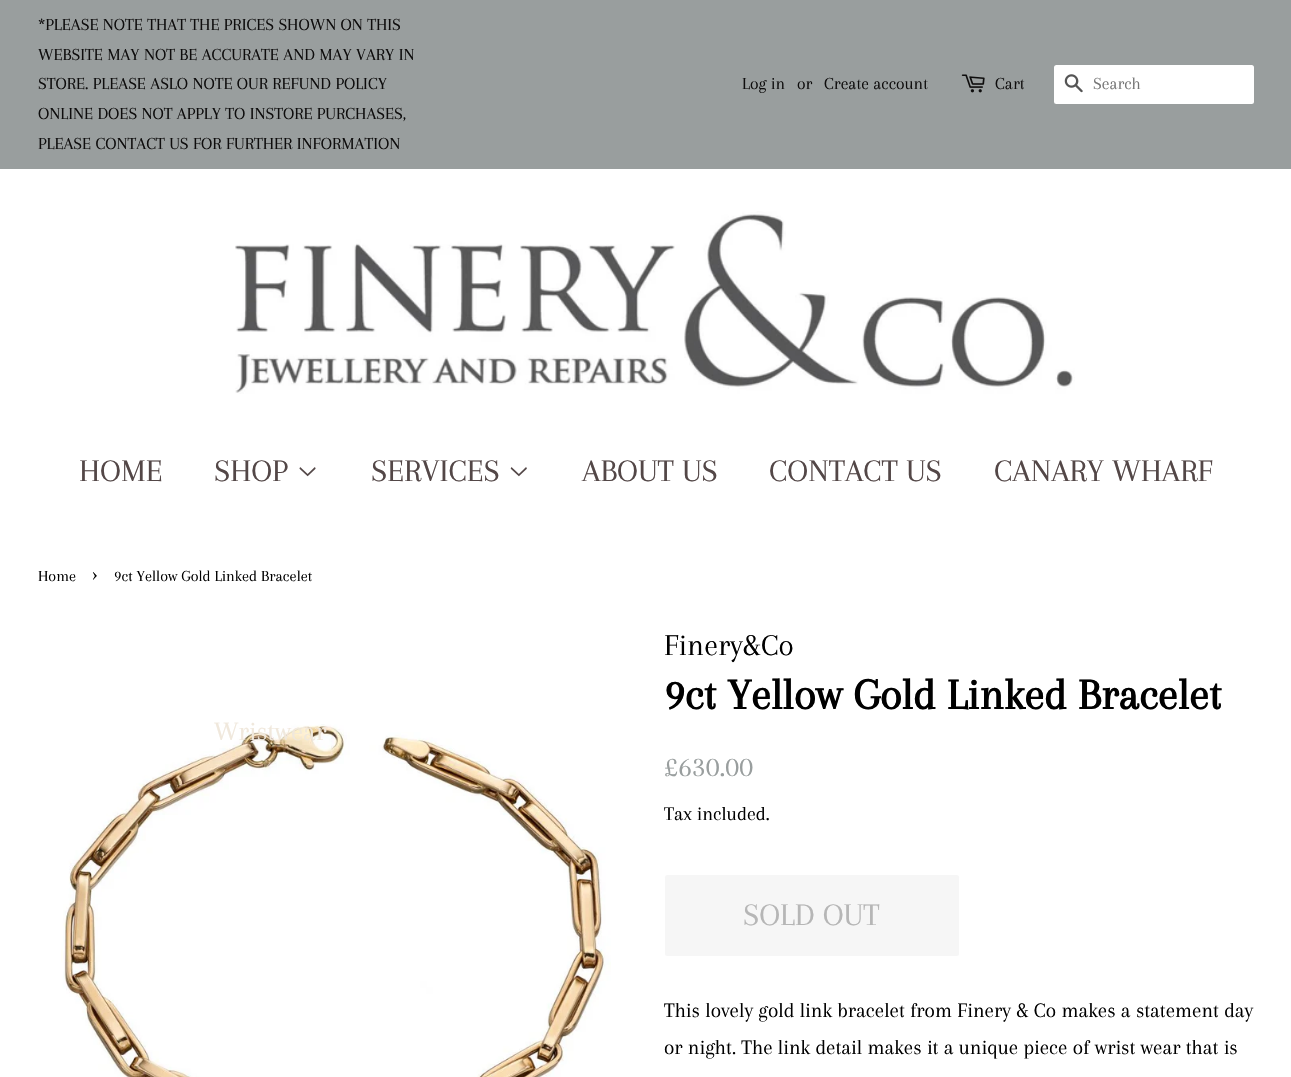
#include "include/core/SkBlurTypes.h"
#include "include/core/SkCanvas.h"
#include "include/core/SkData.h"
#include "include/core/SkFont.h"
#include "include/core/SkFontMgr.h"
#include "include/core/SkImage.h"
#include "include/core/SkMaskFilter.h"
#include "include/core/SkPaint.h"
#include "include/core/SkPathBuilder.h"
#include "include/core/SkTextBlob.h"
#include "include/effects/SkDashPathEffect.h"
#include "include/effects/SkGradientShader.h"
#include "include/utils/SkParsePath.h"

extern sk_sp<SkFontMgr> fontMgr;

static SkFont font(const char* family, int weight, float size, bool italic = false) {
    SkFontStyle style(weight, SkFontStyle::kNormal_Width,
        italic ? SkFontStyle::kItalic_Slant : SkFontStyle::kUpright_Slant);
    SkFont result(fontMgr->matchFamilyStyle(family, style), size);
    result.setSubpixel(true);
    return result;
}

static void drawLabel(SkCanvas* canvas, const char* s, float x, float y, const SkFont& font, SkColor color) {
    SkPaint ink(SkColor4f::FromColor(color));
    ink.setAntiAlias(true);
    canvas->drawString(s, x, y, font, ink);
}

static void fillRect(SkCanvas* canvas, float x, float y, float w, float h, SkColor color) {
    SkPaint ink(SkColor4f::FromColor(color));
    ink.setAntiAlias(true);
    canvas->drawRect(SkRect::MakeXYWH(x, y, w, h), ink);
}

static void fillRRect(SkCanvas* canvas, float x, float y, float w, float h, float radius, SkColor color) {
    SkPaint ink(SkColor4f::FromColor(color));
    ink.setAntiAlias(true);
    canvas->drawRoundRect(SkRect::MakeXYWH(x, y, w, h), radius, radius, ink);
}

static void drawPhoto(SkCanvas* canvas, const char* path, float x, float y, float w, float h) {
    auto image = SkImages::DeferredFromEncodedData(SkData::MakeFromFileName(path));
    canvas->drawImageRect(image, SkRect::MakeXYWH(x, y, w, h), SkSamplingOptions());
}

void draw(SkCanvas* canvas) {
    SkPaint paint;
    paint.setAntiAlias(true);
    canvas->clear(0xFFFFFFFF);
    fillRect(canvas, 0, 0, 1291, 169, 0xFF999E9E);
    SkFont font1 = font("Arapey", 400, 17.5f);
    drawLabel(canvas, "*PLEASE NOTE THAT THE PRICES SHOWN ON THIS", 38, 30, font1, 0xFF0E0D0D);
    drawLabel(canvas, "WEBSITE MAY NOT BE ACCURATE AND MAY VARY IN", 38, 60, font1, 0xFF0E0D0D);
    drawLabel(canvas, "STORE. PLEASE ASLO NOTE OUR REFUND POLICY", 38, 89, font1, 0xFF0E0D0D);
    drawLabel(canvas, "ONLINE DOES NOT APPLY TO INSTORE PURCHASES,", 38, 119, font1, 0xFF0E0D0D);
    drawLabel(canvas, "PLEASE CONTACT US FOR FURTHER INFORMATION", 38, 149, font1, 0xFF0E0D0D);
    drawLabel(canvas, "Log in", 742, 89, font1, 0xFF0E0D0D);
    drawLabel(canvas, "or", 797, 89, font1, 0xFF0E0D0D);
    drawLabel(canvas, "Create account", 824, 89, font1, 0xFF0E0D0D);
    drawPhoto(canvas, "assets/img1.png", 961, 74, 24, 19);
    drawLabel(canvas, "Cart", 995, 89, font1, 0xFF0E0D0D);
    fillRRect(canvas, 1054, 65, 200, 39, 2.5f, 0xFFFFFFFF);
    drawPhoto(canvas, "assets/img2.png", 1064, 74, 19, 19);
    drawLabel(canvas, "Search", 1093, 89, font1, 0xFF757575);
    drawPhoto(canvas, "assets/img3.png", 235, 211, 840, 183);
    SkFont font2 = font("Arapey", 400, 32.5f);
    drawLabel(canvas, "HOME", 79, 481, font2, 0xFF534747);
    drawLabel(canvas, "SHOP", 214, 481, font2, 0xFF534747);
    drawPhoto(canvas, "assets/img4.png", 299, 467, 17, 10);
    drawPhoto(canvas, "assets/img6.png", 61, 724, 550, 353);
    SkFont font3 = font("Arapey", 400, 27.5f);
    drawLabel(canvas, "Wristwear", 214, 740, font3, 0xFFF0E8DC);
    drawLabel(canvas, "SERVICES", 371, 481, font2, 0xFF534747);
    drawPhoto(canvas, "assets/img5.png", 510, 467, 17, 10);
    drawLabel(canvas, "ABOUT US", 582, 481, font2, 0xFF534747);
    drawLabel(canvas, "CONTACT US", 769, 481, font2, 0xFF534747);
    drawLabel(canvas, "CANARY WHARF", 994, 481, font2, 0xFF534747);
    SkFont font4 = font("Arapey", 400, 16);
    drawLabel(canvas, "Home", 38, 581, font4, 0xFF000000);
    SkFont font5 = font("Arapey", 400, 22);
    drawLabel(canvas, "›", 92, 581, font5, 0xFF000000);
    drawLabel(canvas, "9ct Yellow Gold Linked Bracelet", 114, 581, font4, 0xFF000000);
    SkFont font6 = font("Arapey", 400, 31.25f);
    drawLabel(canvas, "Finery&Co", 664, 655, font6, 0xFF000000);
    SkFont font7 = font("Arapey", 700, 45);
    drawLabel(canvas, "9ct Yellow Gold Linked Bracelet", 664, 709, font7, 0xFF000000);
    SkFont font8 = font("Arapey", 400, 30);
    drawLabel(canvas, "£630.00", 664, 776, font8, 0xFF999E9E);
    SkFont font9 = font("Arapey", 400, 20);
    drawLabel(canvas, "Tax included.", 664, 820, font9, 0xFF000000);
    fillRRect(canvas, 665, 875, 294, 81, 2.5f, 0xFFF6F6F6);
    drawLabel(canvas, "SOLD OUT", 743, 925, font2, 0xFFB6B6B6);
    SkFont font10 = font("Arapey", 400, 21.25f);
    drawLabel(canvas, "This lovely gold link bracelet from Finery & Co makes a statement day", 664, 1017, font10, 0xFF000000);
    drawLabel(canvas, "or night. The link detail makes it a unique piece of wrist wear that is", 664, 1054, font10, 0xFF000000);
}
